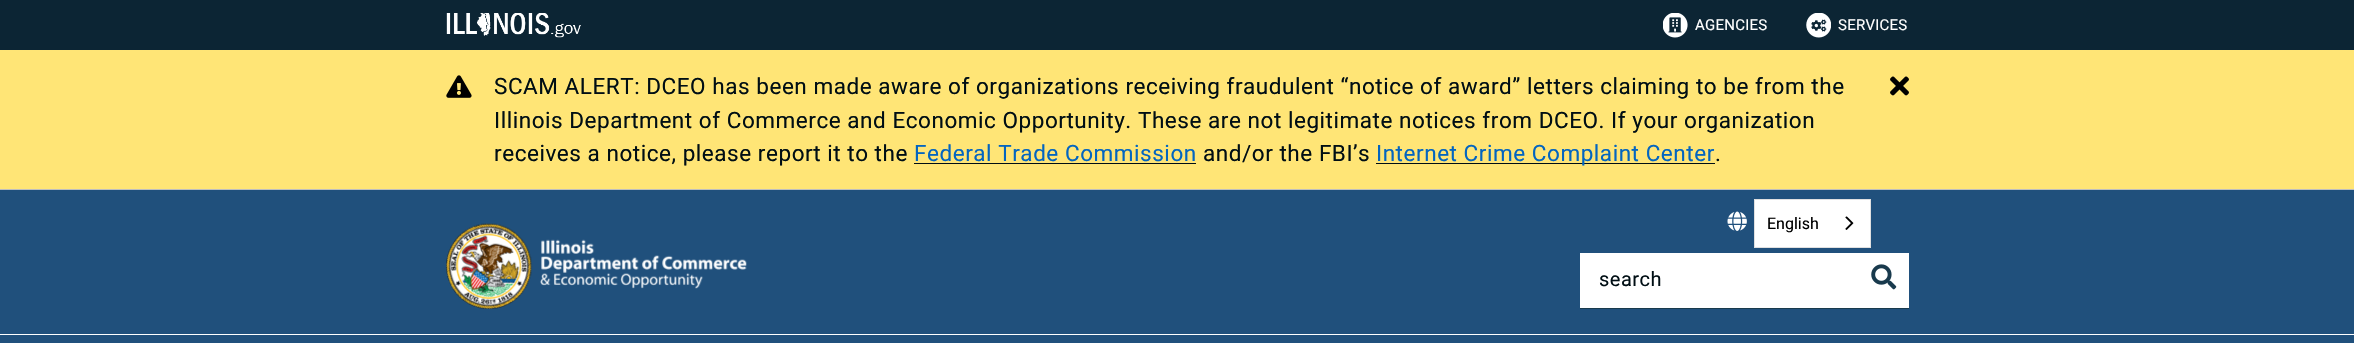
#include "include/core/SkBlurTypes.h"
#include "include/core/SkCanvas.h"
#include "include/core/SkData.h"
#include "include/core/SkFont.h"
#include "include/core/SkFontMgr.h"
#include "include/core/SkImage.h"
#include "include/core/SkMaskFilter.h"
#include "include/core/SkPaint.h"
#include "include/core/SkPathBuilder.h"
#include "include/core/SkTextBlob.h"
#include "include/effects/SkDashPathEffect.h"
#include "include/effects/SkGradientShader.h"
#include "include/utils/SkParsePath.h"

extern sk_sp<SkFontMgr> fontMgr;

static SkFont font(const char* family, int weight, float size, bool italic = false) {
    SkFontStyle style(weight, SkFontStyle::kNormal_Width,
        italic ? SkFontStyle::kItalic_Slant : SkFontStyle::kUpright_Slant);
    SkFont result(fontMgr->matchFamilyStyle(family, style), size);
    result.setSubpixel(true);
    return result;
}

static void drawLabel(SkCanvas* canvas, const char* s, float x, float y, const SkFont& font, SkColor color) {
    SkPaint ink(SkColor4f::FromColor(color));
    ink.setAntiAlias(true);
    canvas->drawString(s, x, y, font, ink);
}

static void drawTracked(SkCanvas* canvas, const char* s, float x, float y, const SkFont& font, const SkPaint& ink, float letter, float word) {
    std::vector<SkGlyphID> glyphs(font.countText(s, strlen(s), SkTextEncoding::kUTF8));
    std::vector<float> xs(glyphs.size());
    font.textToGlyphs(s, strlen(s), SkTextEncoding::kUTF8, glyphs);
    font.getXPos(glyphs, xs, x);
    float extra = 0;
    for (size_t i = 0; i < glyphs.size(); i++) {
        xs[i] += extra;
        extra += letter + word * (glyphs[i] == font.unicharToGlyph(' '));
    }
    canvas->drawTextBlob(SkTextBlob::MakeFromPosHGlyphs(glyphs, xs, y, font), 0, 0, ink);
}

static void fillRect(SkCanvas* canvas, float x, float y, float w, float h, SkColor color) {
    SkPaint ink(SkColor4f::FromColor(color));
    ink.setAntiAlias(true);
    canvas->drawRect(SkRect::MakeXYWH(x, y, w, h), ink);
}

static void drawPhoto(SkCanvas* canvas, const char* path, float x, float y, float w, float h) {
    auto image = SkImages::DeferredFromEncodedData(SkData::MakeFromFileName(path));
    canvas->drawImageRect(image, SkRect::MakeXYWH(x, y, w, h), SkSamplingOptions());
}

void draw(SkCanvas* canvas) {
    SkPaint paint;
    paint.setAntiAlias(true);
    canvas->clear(0xFF0C2534);
    drawPhoto(canvas, "assets/img1.png", 446, 13, 135, 25);
    drawPhoto(canvas, "assets/img2.png", 1663, 13, 25, 25);
    SkFont font1 = font("Roboto", 400, 15);
    paint.setColor(0xFFFFFFFF);
    drawTracked(canvas, "AGENCIES", 1695, 30, font1, paint, 0.25f, 0);
    drawPhoto(canvas, "assets/img3.png", 1806, 13, 25, 25);
    drawTracked(canvas, "SERVICES", 1838, 30, font1, paint, 0.25f, 0);
    fillRect(canvas, 0, 50, 2354, 139, 0xFFFFE576);
    fillRect(canvas, 0, 189, 2354, 1, 0xFFBEBEBE);
    drawPhoto(canvas, "assets/img4.png", 446, 75, 26, 23);
    SkFont font2 = font("Roboto", 400, 22.5f);
    paint.setColor(0xFF000E14);
    drawTracked(canvas, "SCAM ALERT: DCEO has been made aware of organizations receiving fraudulent “notice of award” letters claiming to be from the", 494, 94, font2, paint, 0.54f, 0);
    drawTracked(canvas, "Illinois Department of Commerce and Economic Opportunity. These are not legitimate notices from DCEO. If your organization", 494, 128, font2, paint, 0.54f, 0);
    drawTracked(canvas, "receives a notice, please report it to the", 494, 161, font2, paint, 0.54f, 0);
    paint.setColor(0xFF0365C0);
    drawTracked(canvas, "Federal Trade Commission", 914, 161, font2, paint, 0.54f, 0);
    fillRect(canvas, 914, 163, 282, 1, 0xFF000E14);
    paint.setColor(0xFF000E14);
    drawTracked(canvas, "and/or the FBI’s", 1203, 161, font2, paint, 0.54f, 0);
    fillRect(canvas, 1376, 163, 339, 1, 0xFF000E14);
    paint.setColor(0xFF0365C0);
    drawTracked(canvas, "Internet Crime Complaint Center", 1376, 161, font2, paint, 0.54f, 0);
    paint.setColor(0xFF000E14);
    drawTracked(canvas, ".", 1715, 161, font2, paint, 0.54f, 0);
    drawPhoto(canvas, "assets/img5.png", 1890, 76, 19, 20);
    fillRect(canvas, 0, 190, 2354, 153, 0xFF20507C);
    drawPhoto(canvas, "assets/img6.png", 446, 223, 301, 86);
    drawPhoto(canvas, "assets/img7.png", 1727, 211, 20, 20);
    paint.setColor(0xFFFFFFFF);
    canvas->drawRect(SkRect::MakeXYWH(1754.5f, 199.5f, 116, 48), paint);
    paint.setStroke(true);
    paint.setStrokeWidth(1);
    paint.setColor(0xFFE0E0E0);
    canvas->drawRect(SkRect::MakeXYWH(1754.5f, 199.5f, 116, 48), paint);
    SkFont font3 = font("Roboto", 400, 16);
    drawLabel(canvas, "English", 1767, 229, font3, 0xFF000000);
    drawPhoto(canvas, "assets/img8.png", 1845, 216, 9, 14);
    fillRect(canvas, 1580, 308, 329, 1, 0xFF193A4D);
    fillRect(canvas, 1580, 253, 329, 55, 0xFFFFFFFF);
    SkFont font4 = font("Roboto", 400, 20);
    paint.setStroke(false);
    paint.setColor(0xFF000E14);
    drawTracked(canvas, "search", 1599, 286, font4, paint, 0.5f, 0);
    drawPhoto(canvas, "assets/img9.png", 1871, 264, 26, 26);
    fillRect(canvas, 0, 334, 2354, 1, 0xFFFFFFFF);
}
